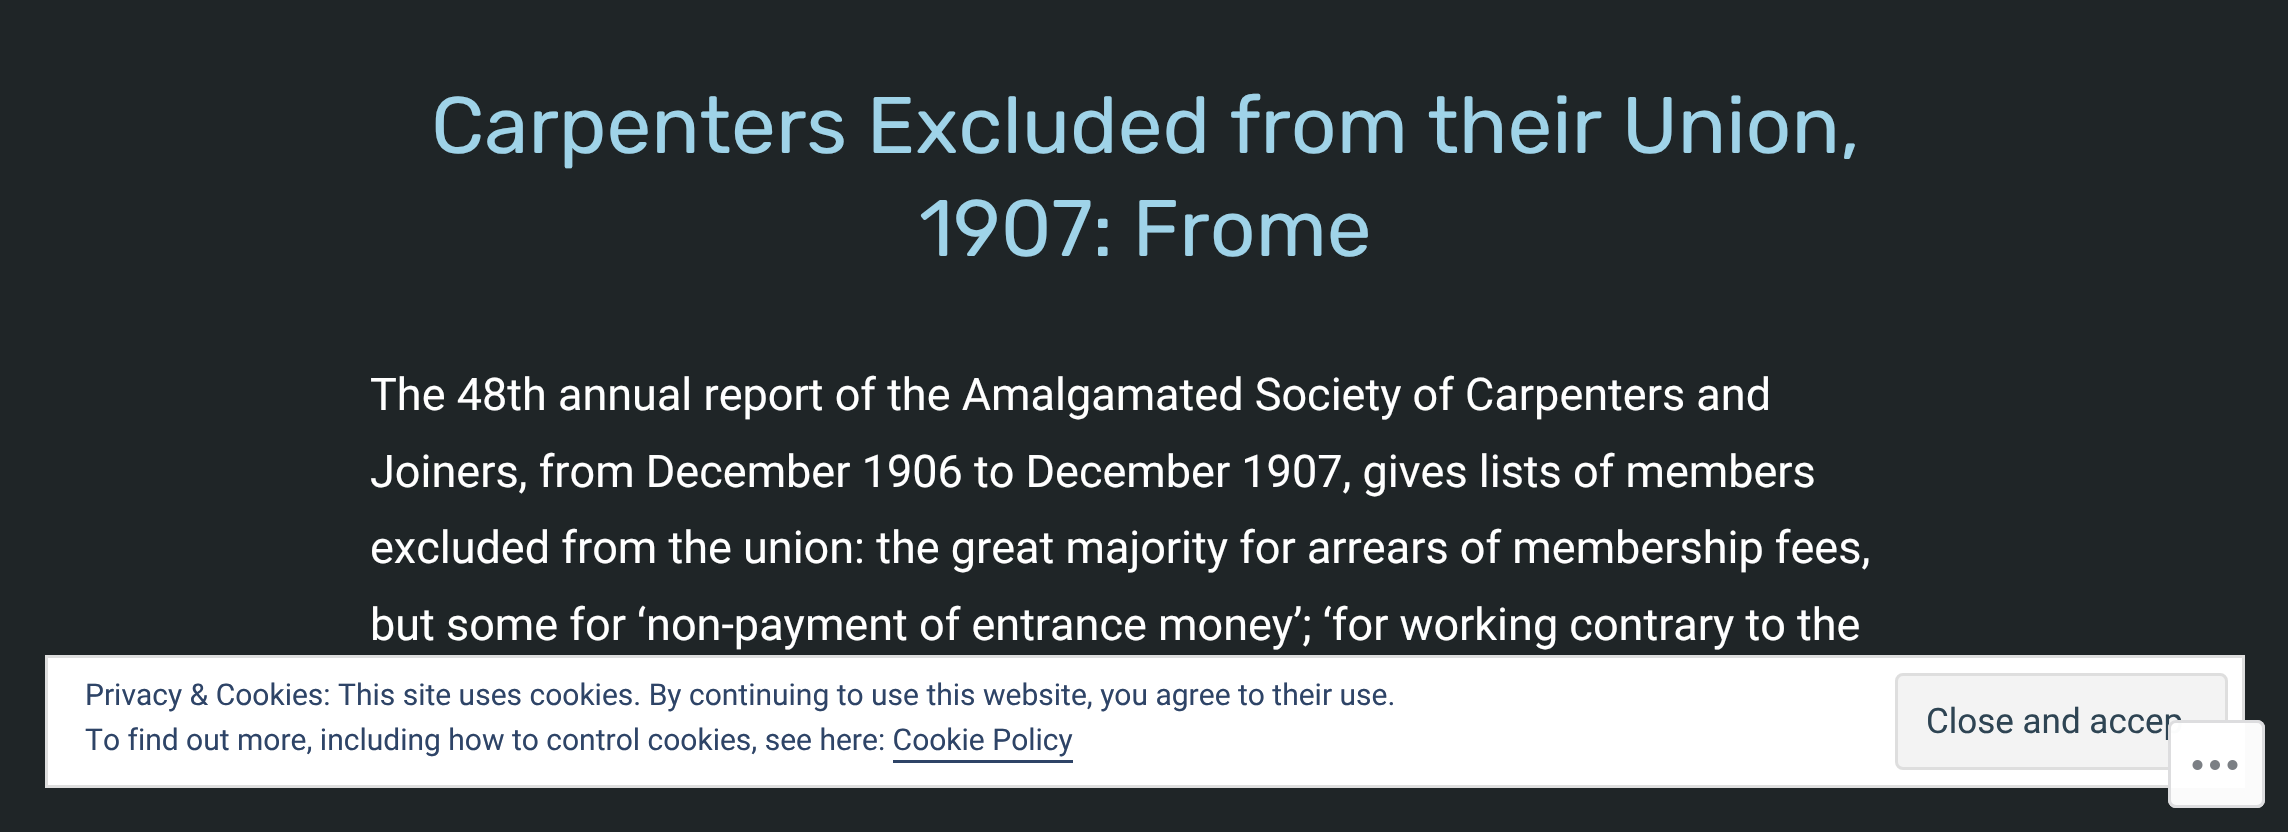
#include "include/core/SkBlurTypes.h"
#include "include/core/SkCanvas.h"
#include "include/core/SkData.h"
#include "include/core/SkFont.h"
#include "include/core/SkFontMgr.h"
#include "include/core/SkImage.h"
#include "include/core/SkMaskFilter.h"
#include "include/core/SkPaint.h"
#include "include/core/SkPathBuilder.h"
#include "include/core/SkTextBlob.h"
#include "include/effects/SkDashPathEffect.h"
#include "include/effects/SkGradientShader.h"
#include "include/utils/SkParsePath.h"

extern sk_sp<SkFontMgr> fontMgr;

static SkFont font(const char* family, int weight, float size, bool italic = false) {
    SkFontStyle style(weight, SkFontStyle::kNormal_Width,
        italic ? SkFontStyle::kItalic_Slant : SkFontStyle::kUpright_Slant);
    SkFont result(fontMgr->matchFamilyStyle(family, style), size);
    result.setSubpixel(true);
    return result;
}

static void drawLabel(SkCanvas* canvas, const char* s, float x, float y, const SkFont& font, SkColor color) {
    SkPaint ink(SkColor4f::FromColor(color));
    ink.setAntiAlias(true);
    canvas->drawString(s, x, y, font, ink);
}

static void fillRect(SkCanvas* canvas, float x, float y, float w, float h, SkColor color) {
    SkPaint ink(SkColor4f::FromColor(color));
    ink.setAntiAlias(true);
    canvas->drawRect(SkRect::MakeXYWH(x, y, w, h), ink);
}

static void fillRRect(SkCanvas* canvas, float x, float y, float w, float h, float radius, SkColor color) {
    SkPaint ink(SkColor4f::FromColor(color));
    ink.setAntiAlias(true);
    canvas->drawRoundRect(SkRect::MakeXYWH(x, y, w, h), radius, radius, ink);
}

static void drawPhoto(SkCanvas* canvas, const char* path, float x, float y, float w, float h) {
    auto image = SkImages::DeferredFromEncodedData(SkData::MakeFromFileName(path));
    canvas->drawImageRect(image, SkRect::MakeXYWH(x, y, w, h), SkSamplingOptions());
}

void draw(SkCanvas* canvas) {
    SkPaint paint;
    paint.setAntiAlias(true);
    canvas->clear(0xFF1F2527);
    SkFont font1 = font("Rubik", 400, 80);
    drawLabel(canvas, "Carpenters Excluded from their Union,", 431, 153, font1, 0xFF9FD3E8);
    drawLabel(canvas, "1907: Frome", 919, 256, font1, 0xFF9FD3E8);
    SkFont font2 = font("Roboto", 400, 45);
    drawLabel(canvas, "The 48th annual report of the Amalgamated Society of Carpenters and", 370, 410, font2, 0xFFFFFFFF);
    drawLabel(canvas, "Joiners, from December 1906 to December 1907, gives lists of members", 370, 487, font2, 0xFFFFFFFF);
    drawLabel(canvas, "excluded from the union: the great majority for arrears of membership fees,", 370, 563, font2, 0xFFFFFFFF);
    drawLabel(canvas, "but some for ‘non-payment of entrance money’; ‘for working contrary to the", 370, 640, font2, 0xFFFFFFFF);
    paint.setColor(0xFFFFFFFF);
    canvas->drawRect(SkRect::MakeXYWH(46.5f, 656.5f, 2197, 130), paint);
    paint.setStroke(true);
    paint.setStrokeWidth(3);
    paint.setColor(0xFFDEDEDE);
    canvas->drawRect(SkRect::MakeXYWH(46.5f, 656.5f, 2197, 130), paint);
    SkFont font3 = font("Roboto", 400, 30);
    drawLabel(canvas, "Privacy & Cookies: This site uses cookies. By continuing to use this website, you agree to their use.", 85, 705, font3, 0xFF2E4467);
    drawLabel(canvas, "To find out more, including how to control cookies, see here: Cookie Policy", 85, 750, font3, 0xFF2E4467);
    paint.setStroke(false);
    paint.setColor(0xFFF3F3F3);
    canvas->drawRoundRect(SkRect::MakeXYWH(1896.5f, 674.5f, 330, 94), 6.5f, 6.5f, paint);
    paint.setStroke(true);
    paint.setColor(0xFFDEDEDE);
    canvas->drawRoundRect(SkRect::MakeXYWH(1896.5f, 674.5f, 330, 94), 6.5f, 6.5f, paint);
    SkFont font4 = font("Roboto", 400, 35);
    drawLabel(canvas, "Close and accep", 1926, 733, font4, 0xFF2E4453);
    fillRect(canvas, 893, 760, 180, 3, 0xFF2E4467);
    fillRRect(canvas, 2168, 720, 97, 88, 8, 0xFAFFFFFF);
    paint.setColor(0xFADCDCDE);
    canvas->drawRoundRect(SkRect::MakeXYWH(2169.5f, 721.5f, 94, 85), 6.5f, 6.5f, paint);
    drawPhoto(canvas, "assets/img1.png", 2192, 760, 46, 10);
}
